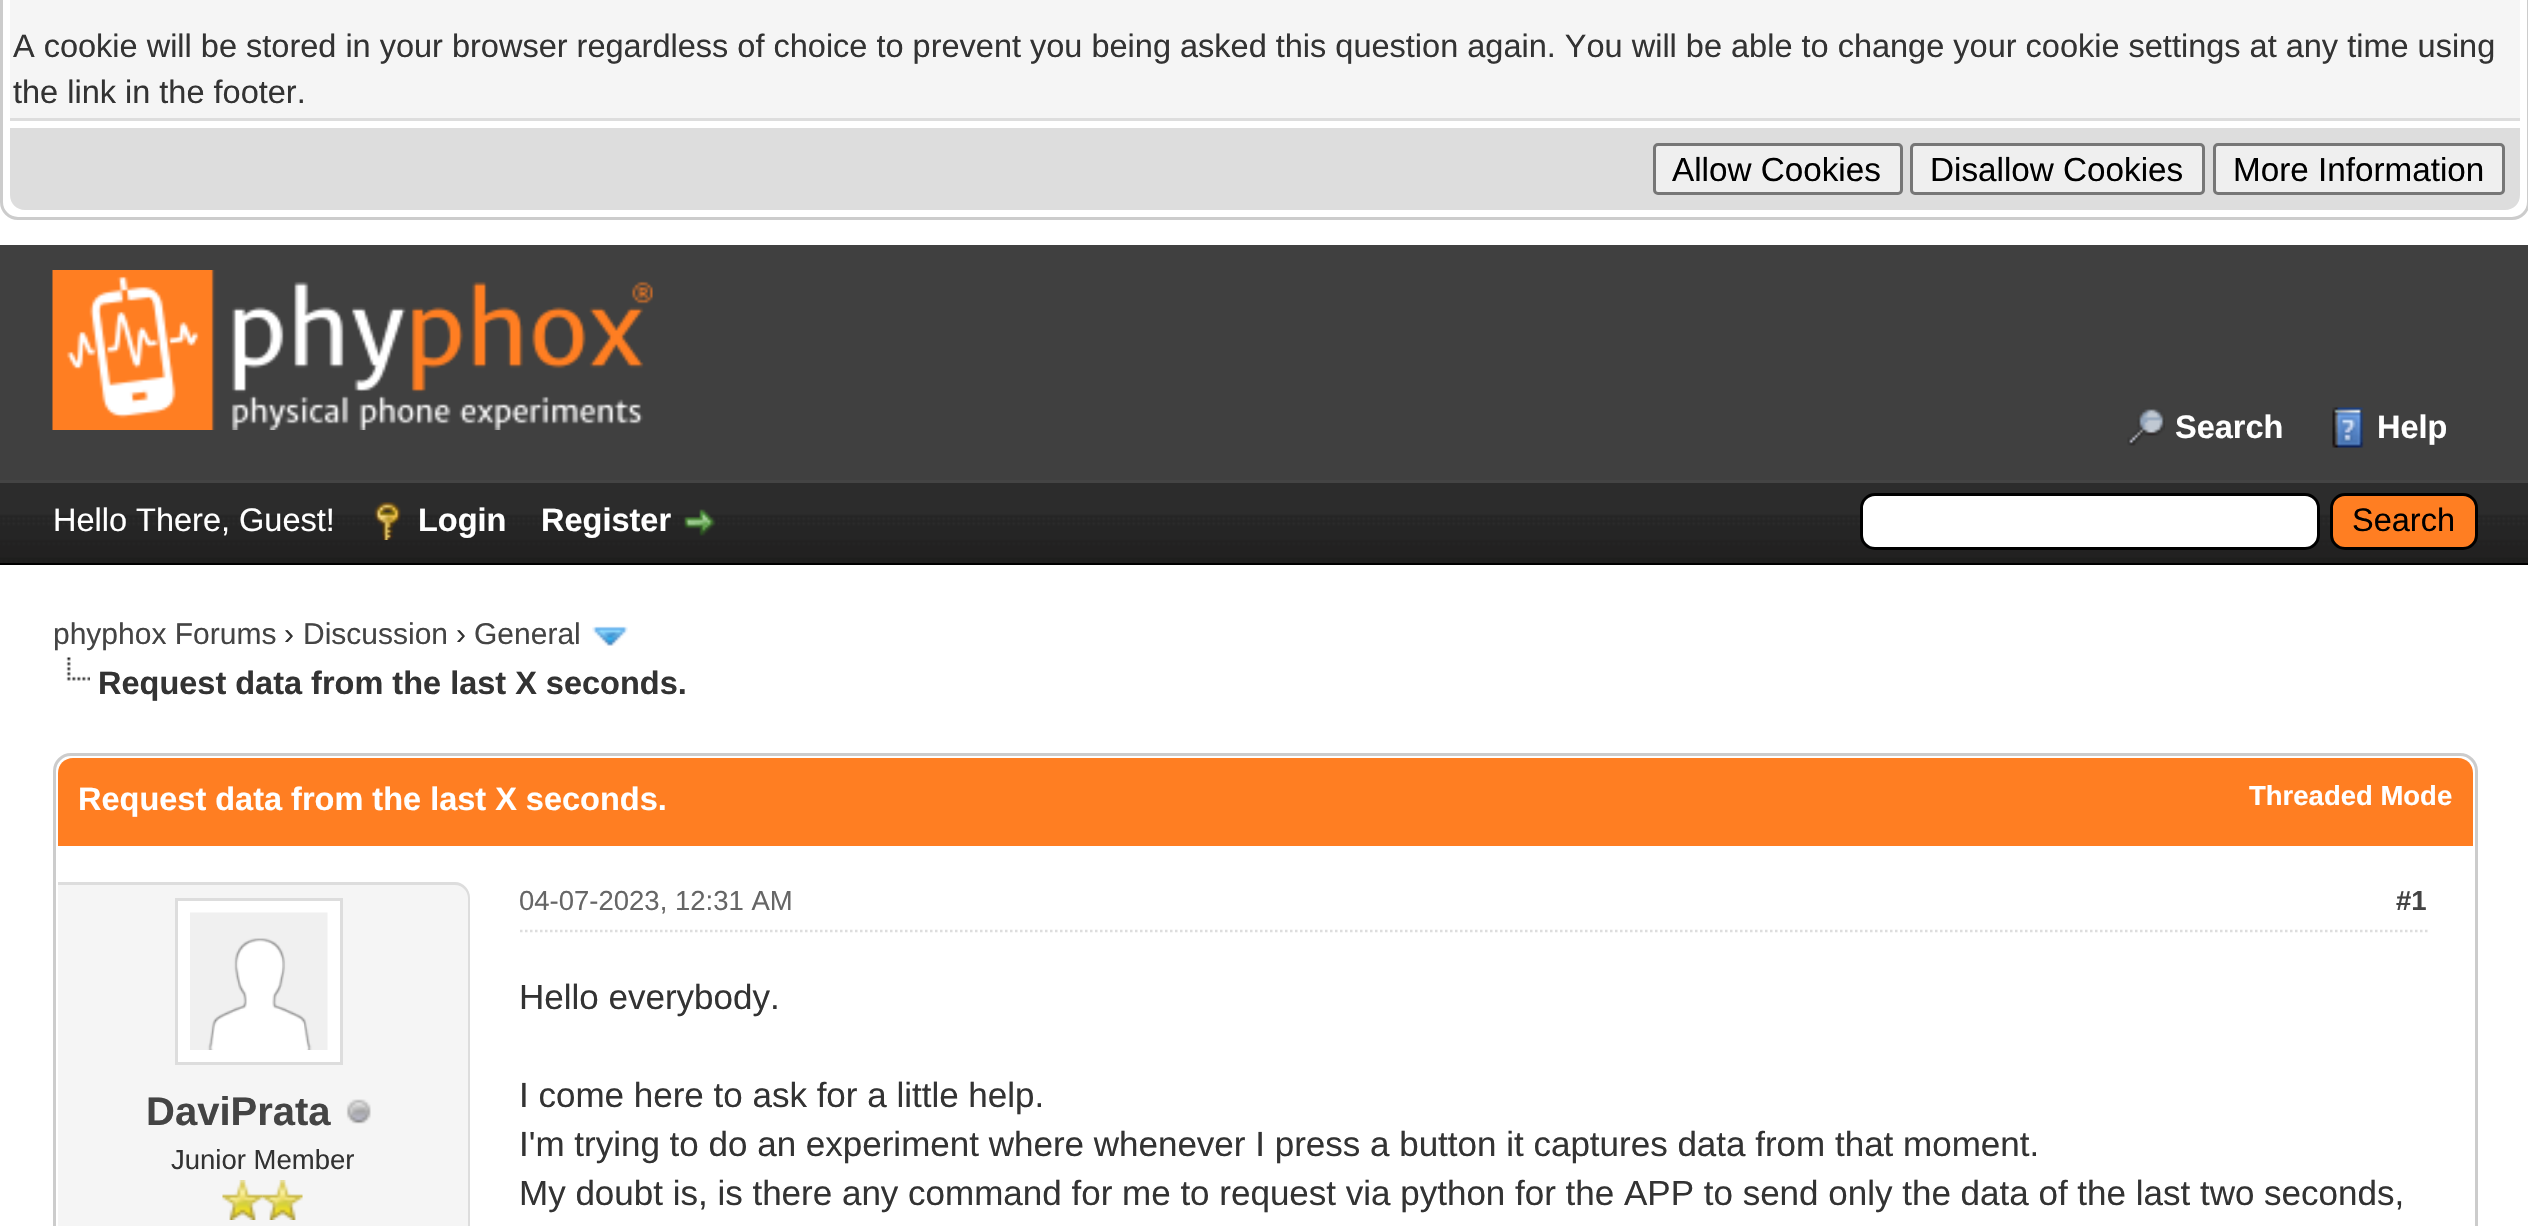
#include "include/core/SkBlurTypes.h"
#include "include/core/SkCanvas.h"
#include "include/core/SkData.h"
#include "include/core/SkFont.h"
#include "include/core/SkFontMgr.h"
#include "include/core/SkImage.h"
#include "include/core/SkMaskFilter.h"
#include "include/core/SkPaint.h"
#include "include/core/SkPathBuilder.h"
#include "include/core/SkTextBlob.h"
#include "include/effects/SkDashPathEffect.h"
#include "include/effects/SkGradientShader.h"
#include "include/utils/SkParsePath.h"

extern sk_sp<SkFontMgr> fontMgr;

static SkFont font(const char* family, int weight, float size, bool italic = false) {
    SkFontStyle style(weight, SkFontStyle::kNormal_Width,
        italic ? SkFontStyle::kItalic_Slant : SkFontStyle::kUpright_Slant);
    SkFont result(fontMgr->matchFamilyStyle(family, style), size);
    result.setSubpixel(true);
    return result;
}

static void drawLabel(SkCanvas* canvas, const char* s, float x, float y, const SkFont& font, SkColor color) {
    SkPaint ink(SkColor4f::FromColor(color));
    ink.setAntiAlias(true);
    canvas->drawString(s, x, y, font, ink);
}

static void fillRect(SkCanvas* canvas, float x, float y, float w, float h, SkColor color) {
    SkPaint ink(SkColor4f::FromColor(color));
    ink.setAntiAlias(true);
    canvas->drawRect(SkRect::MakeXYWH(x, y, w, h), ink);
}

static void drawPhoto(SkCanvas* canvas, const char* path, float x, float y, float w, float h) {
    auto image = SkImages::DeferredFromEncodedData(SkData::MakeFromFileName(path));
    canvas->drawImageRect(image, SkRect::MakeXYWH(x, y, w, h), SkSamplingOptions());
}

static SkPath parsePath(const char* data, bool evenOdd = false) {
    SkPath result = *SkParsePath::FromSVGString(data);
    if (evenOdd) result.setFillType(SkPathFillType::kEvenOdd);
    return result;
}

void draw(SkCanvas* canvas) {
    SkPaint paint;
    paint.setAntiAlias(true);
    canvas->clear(0xFFFFFFFF);
    paint.setStroke(true);
    paint.setStrokeWidth(3);
    paint.setColor(0xFFCCCCCC);
    canvas->drawRoundRect(SkRect::MakeXYWH(1.5f, -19.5f, 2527, 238), 16.5f, 16.5f, paint);
    fillRect(canvas, 10, 0, 2510, 118, 0xFFF5F5F5);
    fillRect(canvas, 10, 118, 2510, 3, 0xFFDDDDDD);
    SkFont font1 = font("Liberation Sans", 400, 32.5f);
    drawLabel(canvas, "A cookie will be stored in your browser regardless of choice to prevent you being asked this question again. You will be able to change your cookie settings at any time using", 13, 57, font1, 0xFF333333);
    drawLabel(canvas, "the link in the footer.", 13, 103, font1, 0xFF333333);
    paint.setStroke(false);
    paint.setColor(0xFFDDDDDD);
    canvas->drawPath(parsePath("M10 125H2520V195C2520 203.5 2513.5 210 2505 210H25C16.5 210 10 203.5 10 195Z"), paint);
    fillRect(canvas, 10, 125, 2510, 3, 0xFFFFFFFF);
    paint.setColor(0xFFEFEFEF);
    canvas->drawRoundRect(SkRect::MakeXYWH(1654.5f, 144.5f, 247, 49), 3.5f, 3.5f, paint);
    paint.setStroke(true);
    paint.setColor(0xFF767676);
    canvas->drawRoundRect(SkRect::MakeXYWH(1654.5f, 144.5f, 247, 49), 3.5f, 3.5f, paint);
    SkFont font2 = font("Liberation Sans", 400, 33.25f);
    drawLabel(canvas, "Allow Cookies", 1672, 181, font2, 0xFF000000);
    paint.setStroke(false);
    paint.setColor(0xFFEFEFEF);
    canvas->drawRoundRect(SkRect::MakeXYWH(1911.5f, 144.5f, 292, 49), 3.5f, 3.5f, paint);
    paint.setStroke(true);
    paint.setColor(0xFF767676);
    canvas->drawRoundRect(SkRect::MakeXYWH(1911.5f, 144.5f, 292, 49), 3.5f, 3.5f, paint);
    drawLabel(canvas, "Disallow Cookies", 1930, 181, font2, 0xFF000000);
    paint.setStroke(false);
    paint.setColor(0xFFEFEFEF);
    canvas->drawRoundRect(SkRect::MakeXYWH(2214.5f, 144.5f, 289, 49), 3.5f, 3.5f, paint);
    paint.setStroke(true);
    paint.setColor(0xFF767676);
    canvas->drawRoundRect(SkRect::MakeXYWH(2214.5f, 144.5f, 289, 49), 3.5f, 3.5f, paint);
    drawLabel(canvas, "More Information", 2233, 181, font2, 0xFF000000);
    fillRect(canvas, 0, 245, 2528, 235, 0xFF404040);
    drawPhoto(canvas, "assets/img1.png", 52, 270, 601, 160);
    drawPhoto(canvas, "assets/img2.png", 2127, 408, 38, 38);
    SkFont font3 = font("Liberation Sans", 700, 32.5f);
    drawLabel(canvas, "Search", 2175, 438, font3, 0xFFFFFFFF);
    drawPhoto(canvas, "assets/img3.png", 2332, 407, 32, 41);
    drawLabel(canvas, "Help", 2377, 438, font3, 0xFFFFFFFF);
    drawPhoto(canvas, "assets/img4.png", 0, 483, 2528, 80);
    fillRect(canvas, 0, 480, 2528, 3, 0xFF444444);
    fillRect(canvas, 0, 563, 2528, 2, 0xFF000000);
    drawLabel(canvas, "Hello There, Guest!", 53, 531, font1, 0xFFFFFFFF);
    drawPhoto(canvas, "assets/img5.png", 374, 502, 27, 38);
    drawLabel(canvas, "Login", 418, 531, font3, 0xFFFFFFFF);
    drawLabel(canvas, "Register", 541, 531, font3, 0xFFFFFFFF);
    drawPhoto(canvas, "assets/img6.png", 684, 509, 32, 27);
    paint.setStroke(false);
    paint.setColor(0xFFFFFFFF);
    canvas->drawRoundRect(SkRect::MakeXYWH(1861.5f, 494.5f, 457, 54), 13.5f, 13.5f, paint);
    paint.setStroke(true);
    paint.setColor(0xFF000000);
    canvas->drawRoundRect(SkRect::MakeXYWH(1861.5f, 494.5f, 457, 54), 13.5f, 13.5f, paint);
    paint.setStroke(false);
    paint.setColor(0xFFFF7E22);
    canvas->drawRoundRect(SkRect::MakeXYWH(2331.5f, 494.5f, 145, 54), 13.5f, 13.5f, paint);
    paint.setStroke(true);
    paint.setColor(0xFF000000);
    canvas->drawRoundRect(SkRect::MakeXYWH(2331.5f, 494.5f, 145, 54), 13.5f, 13.5f, paint);
    drawLabel(canvas, "Search", 2352, 531, font1, 0xFF000000);
    SkFont font4 = font("Liberation Sans", 400, 30);
    drawLabel(canvas, "phyphox Forums", 53, 644, font4, 0xFF444444);
    drawLabel(canvas, "›", 284, 644, font4, 0xFF333333);
    drawLabel(canvas, "Discussion", 303, 644, font4, 0xFF444444);
    drawLabel(canvas, "›", 456, 644, font4, 0xFF333333);
    drawLabel(canvas, "General", 474, 644, font4, 0xFF444444);
    drawPhoto(canvas, "assets/img7.png", 592, 626, 36, 20);
    drawPhoto(canvas, "assets/img8.png", 66, 657, 24, 24);
    drawLabel(canvas, "Request data from the last X seconds.", 98, 694, font3, 0xFF333333);
    paint.setColor(0xFFCCCCCC);
    canvas->drawRoundRect(SkRect::MakeXYWH(54.5f, 754.5f, 2422, 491), 16.5f, 16.5f, paint);
    paint.setStroke(false);
    paint.setColor(0xFFFF7E22);
    canvas->drawPath(parsePath("M73 758H2458C2466.5 758 2473 764.5 2473 773V845H58V773C58 764.5 64.5 758 73 758Z"), paint);
    fillRect(canvas, 58, 845, 2415, 1, 0xFFFF7E22);
    drawLabel(canvas, "Request data from the last X seconds.", 78, 810, font3, 0xFFFFFFFF);
    SkFont font5 = font("Liberation Sans", 700, 27.5f);
    drawLabel(canvas, "Threaded Mode", 2249, 805, font5, 0xFFFFFFFF);
    paint.setColor(0xFFF5F5F5);
    canvas->drawPath(parsePath("M58 883H455C463.5 883 470 889.5 470 898V1226C470 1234.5 463.5 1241 455 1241H58Z"), paint);
    paint.setColor(0xFFDDDDDD);
    canvas->drawPath(parsePath("M58 882H455C463 882 470 889 470 898V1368C470 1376 463 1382 455 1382H58ZM58 885H455C462 885 468 891 468 898V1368C468 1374 462 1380 455 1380H58Z", true), paint);
    paint.setColor(0xFFFFFFFF);
    canvas->drawRect(SkRect::MakeXYWH(176.5f, 899.5f, 165, 164), paint);
    paint.setStroke(true);
    paint.setColor(0xFFDDDDDD);
    canvas->drawRect(SkRect::MakeXYWH(176.5f, 899.5f, 165, 164), paint);
    drawPhoto(canvas, "assets/img9.png", 190, 912, 138, 138);
    SkFont font6 = font("Liberation Sans", 700, 40);
    drawLabel(canvas, "DaviPrata", 146, 1125, font6, 0xFF444444);
    drawPhoto(canvas, "assets/img10.png", 346, 1099, 25, 25);
    SkFont font7 = font("Liberation Sans", 400, 27.5f);
    drawLabel(canvas, "Junior Member", 171, 1169, font7, 0xFF333333);
    drawPhoto(canvas, "assets/img11.png", 222, 1180, 41, 40);
    drawPhoto(canvas, "assets/img12.png", 262, 1180, 41, 40);
    paint.setStrokeWidth(2.5f);
    paint.setPathEffect(SkDashPathEffect::Make({{2.5f, 2.5f}}, 0));
    canvas->drawPath(parsePath("M520 931H2427.5"), paint);
    paint.setPathEffect(nullptr);
    drawLabel(canvas, "04-07-2023, 12:31 AM", 519, 910, font7, 0xFF666666);
    drawLabel(canvas, "#1", 2396, 910, font5, 0xFF444444);
    SkFont font8 = font("Liberation Sans", 400, 35);
    drawLabel(canvas, "Hello everybody.", 519, 1009, font8, 0xFF333333);
    drawLabel(canvas, "I come here to ask for a little help.", 519, 1107, font8, 0xFF333333);
    drawLabel(canvas, "I'm trying to do an experiment where whenever I press a button it captures data from that moment.", 519, 1156, font8, 0xFF333333);
    drawLabel(canvas, "My doubt is, is there any command for me to request via python for the APP to send only the data of the last two seconds,", 519, 1205, font8, 0xFF333333);
}
